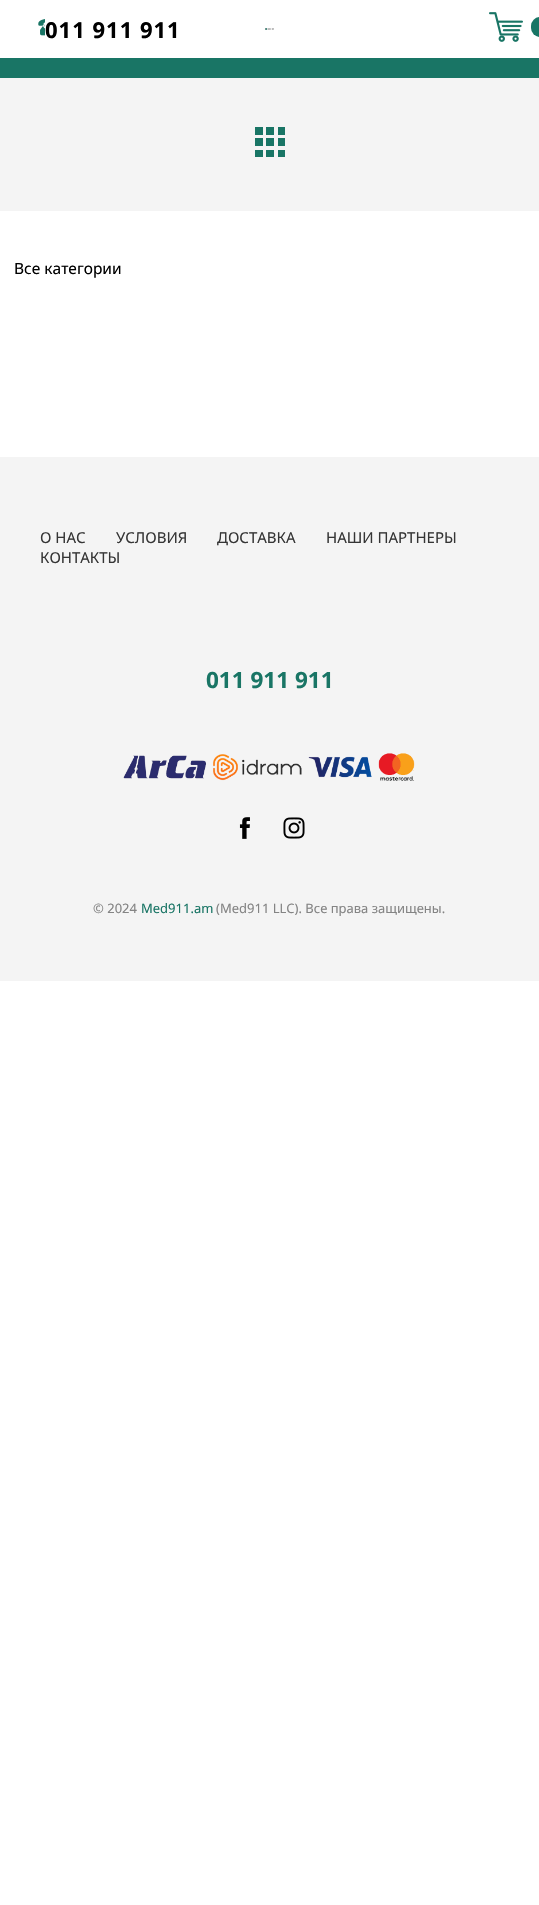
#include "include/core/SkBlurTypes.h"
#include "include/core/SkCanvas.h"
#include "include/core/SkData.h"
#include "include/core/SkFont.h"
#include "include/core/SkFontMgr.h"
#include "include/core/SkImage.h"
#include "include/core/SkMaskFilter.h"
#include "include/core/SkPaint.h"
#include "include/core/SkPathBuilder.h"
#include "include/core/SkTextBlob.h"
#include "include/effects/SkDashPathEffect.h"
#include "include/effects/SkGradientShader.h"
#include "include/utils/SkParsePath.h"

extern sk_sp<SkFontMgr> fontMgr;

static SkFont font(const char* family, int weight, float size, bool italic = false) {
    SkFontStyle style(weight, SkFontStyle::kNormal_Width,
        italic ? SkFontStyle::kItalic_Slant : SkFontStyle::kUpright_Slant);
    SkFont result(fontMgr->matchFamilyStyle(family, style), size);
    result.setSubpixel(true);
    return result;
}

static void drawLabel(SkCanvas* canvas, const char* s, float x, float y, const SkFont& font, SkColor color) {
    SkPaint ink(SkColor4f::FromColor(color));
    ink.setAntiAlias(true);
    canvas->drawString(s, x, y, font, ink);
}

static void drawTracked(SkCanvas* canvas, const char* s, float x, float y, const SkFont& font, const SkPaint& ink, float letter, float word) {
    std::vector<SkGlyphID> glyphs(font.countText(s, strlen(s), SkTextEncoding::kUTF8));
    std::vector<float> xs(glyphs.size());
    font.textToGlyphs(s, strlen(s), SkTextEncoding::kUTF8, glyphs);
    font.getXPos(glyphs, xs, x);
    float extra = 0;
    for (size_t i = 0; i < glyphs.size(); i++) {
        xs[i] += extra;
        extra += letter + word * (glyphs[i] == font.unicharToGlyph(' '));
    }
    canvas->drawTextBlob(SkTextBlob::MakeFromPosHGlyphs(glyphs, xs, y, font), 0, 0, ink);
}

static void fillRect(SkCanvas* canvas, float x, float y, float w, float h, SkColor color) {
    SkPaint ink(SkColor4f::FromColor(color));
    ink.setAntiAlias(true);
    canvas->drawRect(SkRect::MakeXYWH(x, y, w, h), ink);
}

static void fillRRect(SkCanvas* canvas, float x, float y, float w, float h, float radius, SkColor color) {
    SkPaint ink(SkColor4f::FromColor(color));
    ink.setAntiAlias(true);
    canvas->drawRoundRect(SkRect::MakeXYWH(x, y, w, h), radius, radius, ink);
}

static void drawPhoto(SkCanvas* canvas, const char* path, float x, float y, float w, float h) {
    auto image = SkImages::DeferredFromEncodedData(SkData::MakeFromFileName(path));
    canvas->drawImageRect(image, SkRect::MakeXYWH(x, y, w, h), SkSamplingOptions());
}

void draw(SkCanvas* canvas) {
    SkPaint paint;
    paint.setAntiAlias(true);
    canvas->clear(0xFFFFFFFF);
    drawPhoto(canvas, "assets/img1.png", 38, 19, 7, 17);
    SkFont font1 = font("Noto Sans", 700, 22);
    paint.setColor(0xFF000000);
    drawTracked(canvas, "011 911 911", 45, 38, font1, paint, 1, 0);
    drawPhoto(canvas, "assets/img2.png", 265, 28, 9, 2);
    drawPhoto(canvas, "assets/img3.png", 489, 12, 34, 30);
    fillRRect(canvas, 531, 17, 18, 20, 9.5f, 0xFF197565);
    fillRect(canvas, 0, 58, 539, 20, 0xFF197565);
    fillRect(canvas, 0, 78, 539, 133, 0xFFF4F4F4);
    drawPhoto(canvas, "assets/img4.png", 255, 127, 30, 30);
    SkFont font2 = font("Noto Sans", 400, 15.5f);
    drawLabel(canvas, "Все категории", 14, 274, font2, 0xFF000000);
    fillRect(canvas, 0, 457, 539, 524, 0xFFF4F4F4);
    SkFont font3 = font("Noto Sans", 400, 15);
    drawLabel(canvas, "О НАС", 40, 543, font3, 0xFF353535);
    drawLabel(canvas, "УСЛОВИЯ", 116, 543, font3, 0xFF353535);
    drawLabel(canvas, "ДОСТАВКА", 217, 543, font3, 0xFF353535);
    drawLabel(canvas, "НАШИ ПАРТНЕРЫ", 326, 543, font3, 0xFF353535);
    drawLabel(canvas, "КОНТАКТЫ", 40, 563, font3, 0xFF353535);
    SkFont font4 = font("Noto Sans", 700, 22.5f);
    drawLabel(canvas, "011 911 911", 206, 688, font4, 0xFF197565);
    drawPhoto(canvas, "assets/img5.png", 123, 753, 292, 28);
    drawPhoto(canvas, "assets/img6.png", 239, 817, 11, 22);
    drawPhoto(canvas, "assets/img7.png", 283, 817, 22, 22);
    SkFont font5 = font("Noto Sans", 400, 13);
    drawLabel(canvas, "© 2024", 93, 913, font5, 0xFF848484);
    drawLabel(canvas, "Med911.am", 141, 913, font5, 0xFF197565);
    drawLabel(canvas, "(Med911 LLC). Все права защищены.", 216, 913, font5, 0xFF848484);
}
